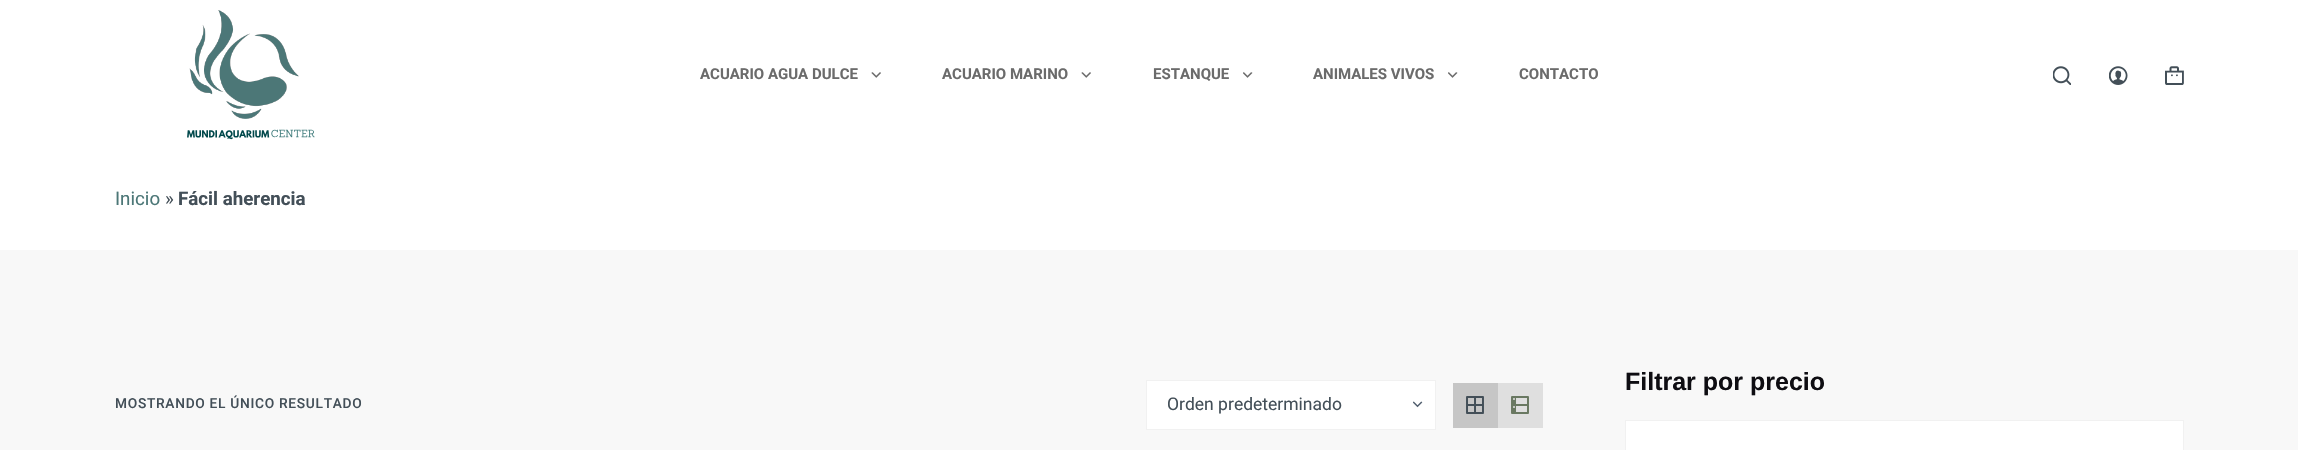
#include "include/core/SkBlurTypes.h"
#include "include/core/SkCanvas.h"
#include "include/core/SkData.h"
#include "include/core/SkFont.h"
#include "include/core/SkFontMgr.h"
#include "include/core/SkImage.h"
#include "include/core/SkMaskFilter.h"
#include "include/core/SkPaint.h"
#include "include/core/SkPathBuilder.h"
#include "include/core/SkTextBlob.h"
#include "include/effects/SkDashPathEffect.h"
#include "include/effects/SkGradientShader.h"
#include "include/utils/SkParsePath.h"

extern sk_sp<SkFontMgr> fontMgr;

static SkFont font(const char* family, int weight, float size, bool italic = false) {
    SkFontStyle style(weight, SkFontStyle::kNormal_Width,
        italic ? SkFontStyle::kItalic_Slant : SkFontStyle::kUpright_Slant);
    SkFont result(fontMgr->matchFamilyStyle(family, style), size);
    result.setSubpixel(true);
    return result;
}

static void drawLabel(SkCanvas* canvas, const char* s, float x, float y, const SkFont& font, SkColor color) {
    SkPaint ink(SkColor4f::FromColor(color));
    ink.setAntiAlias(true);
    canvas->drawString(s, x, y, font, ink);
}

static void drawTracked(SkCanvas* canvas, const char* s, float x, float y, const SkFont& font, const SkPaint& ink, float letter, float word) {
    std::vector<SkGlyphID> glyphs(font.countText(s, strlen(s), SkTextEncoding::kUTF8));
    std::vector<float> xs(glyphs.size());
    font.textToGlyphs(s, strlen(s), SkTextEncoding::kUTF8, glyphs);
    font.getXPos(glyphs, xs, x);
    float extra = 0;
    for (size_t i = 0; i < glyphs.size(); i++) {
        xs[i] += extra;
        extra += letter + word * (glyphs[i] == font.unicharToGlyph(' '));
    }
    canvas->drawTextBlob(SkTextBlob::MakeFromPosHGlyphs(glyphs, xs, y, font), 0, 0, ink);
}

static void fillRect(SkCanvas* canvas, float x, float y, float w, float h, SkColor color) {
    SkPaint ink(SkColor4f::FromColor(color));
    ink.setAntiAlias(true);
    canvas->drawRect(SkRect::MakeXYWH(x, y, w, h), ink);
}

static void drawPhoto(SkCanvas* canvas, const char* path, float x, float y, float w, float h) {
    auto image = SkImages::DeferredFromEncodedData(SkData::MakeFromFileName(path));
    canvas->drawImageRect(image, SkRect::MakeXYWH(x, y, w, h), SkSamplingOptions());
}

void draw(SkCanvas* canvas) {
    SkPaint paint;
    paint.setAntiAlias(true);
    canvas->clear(0xFFFFFFFF);
    drawPhoto(canvas, "assets/img1.png", 187, 10, 128, 130);
    SkFont font1 = font("Roboto", 700, 15);
    drawLabel(canvas, "ACUARIO AGUA DULCE", 700, 79, font1, 0xFF6B6B6B);
    drawPhoto(canvas, "assets/img2.png", 871, 72, 10, 6);
    drawLabel(canvas, "ACUARIO MARINO", 942, 79, font1, 0xFF6B6B6B);
    drawPhoto(canvas, "assets/img2.png", 1081, 72, 10, 6);
    drawLabel(canvas, "ESTANQUE", 1153, 79, font1, 0xFF6B6B6B);
    drawPhoto(canvas, "assets/img3.png", 1243, 72, 10, 6);
    drawLabel(canvas, "ANIMALES VIVOS", 1313, 79, font1, 0xFF6B6B6B);
    drawPhoto(canvas, "assets/img3.png", 1448, 72, 10, 6);
    drawLabel(canvas, "CONTACTO", 1519, 79, font1, 0xFF6B6B6B);
    drawPhoto(canvas, "assets/img4.png", 2053, 66, 18, 19);
    drawPhoto(canvas, "assets/img5.png", 2109, 66, 19, 19);
    drawPhoto(canvas, "assets/img6.png", 2165, 66, 19, 19);
    SkFont font2 = font("Roboto", 400, 18.75f);
    drawLabel(canvas, "Inicio", 115, 205, font2, 0xFF4C7777);
    drawLabel(canvas, "»", 165, 205, font2, 0xFF434F58);
    SkFont font3 = font("Roboto", 700, 18.75f);
    drawLabel(canvas, "Fácil aherencia", 178, 205, font3, 0xFF434F58);
    fillRect(canvas, 0, 250, 2298, 200, 0xFFF8F8F8);
    SkFont font4 = font("Liberation Sans", 700, 25);
    drawLabel(canvas, "Filtrar por precio", 1625, 390, font4, 0xFF0E0D12);
    paint.setColor(0xFFFFFFFF);
    canvas->drawRect(SkRect::MakeXYWH(1625.5f, 420.5f, 558, 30), paint);
    paint.setStroke(true);
    paint.setStrokeWidth(1);
    paint.setColor(0xFFF1F1F1);
    canvas->drawRect(SkRect::MakeXYWH(1625.5f, 420.5f, 558, 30), paint);
    SkFont font5 = font("Roboto", 500, 13.75f);
    paint.setStroke(false);
    paint.setColor(0xFF434F58);
    drawTracked(canvas, "MOSTRANDO EL ÚNICO RESULTADO", 115, 408, font5, paint, 0.7f, 0);
    fillRect(canvas, 1147, 381, 288, 48, 0xFFFFFFFF);
    drawPhoto(canvas, "assets/img7.png", 1413, 401, 10, 7);
    paint.setStroke(true);
    paint.setColor(0xFFF1F1F1);
    canvas->drawRect(SkRect::MakeXYWH(1146.5f, 380.5f, 289, 49), paint);
    SkFont font6 = font("Roboto", 400, 17.5f);
    drawLabel(canvas, "Orden predeterminado", 1167, 410, font6, 0xFF434F58);
    fillRect(canvas, 1453, 383, 45, 45, 0xFFC6C6C6);
    drawPhoto(canvas, "assets/img8.png", 1466, 396, 18, 18);
    fillRect(canvas, 1498, 383, 45, 45, 0xFFDFDFDF);
    drawPhoto(canvas, "assets/img9.png", 1511, 396, 18, 18);
}
